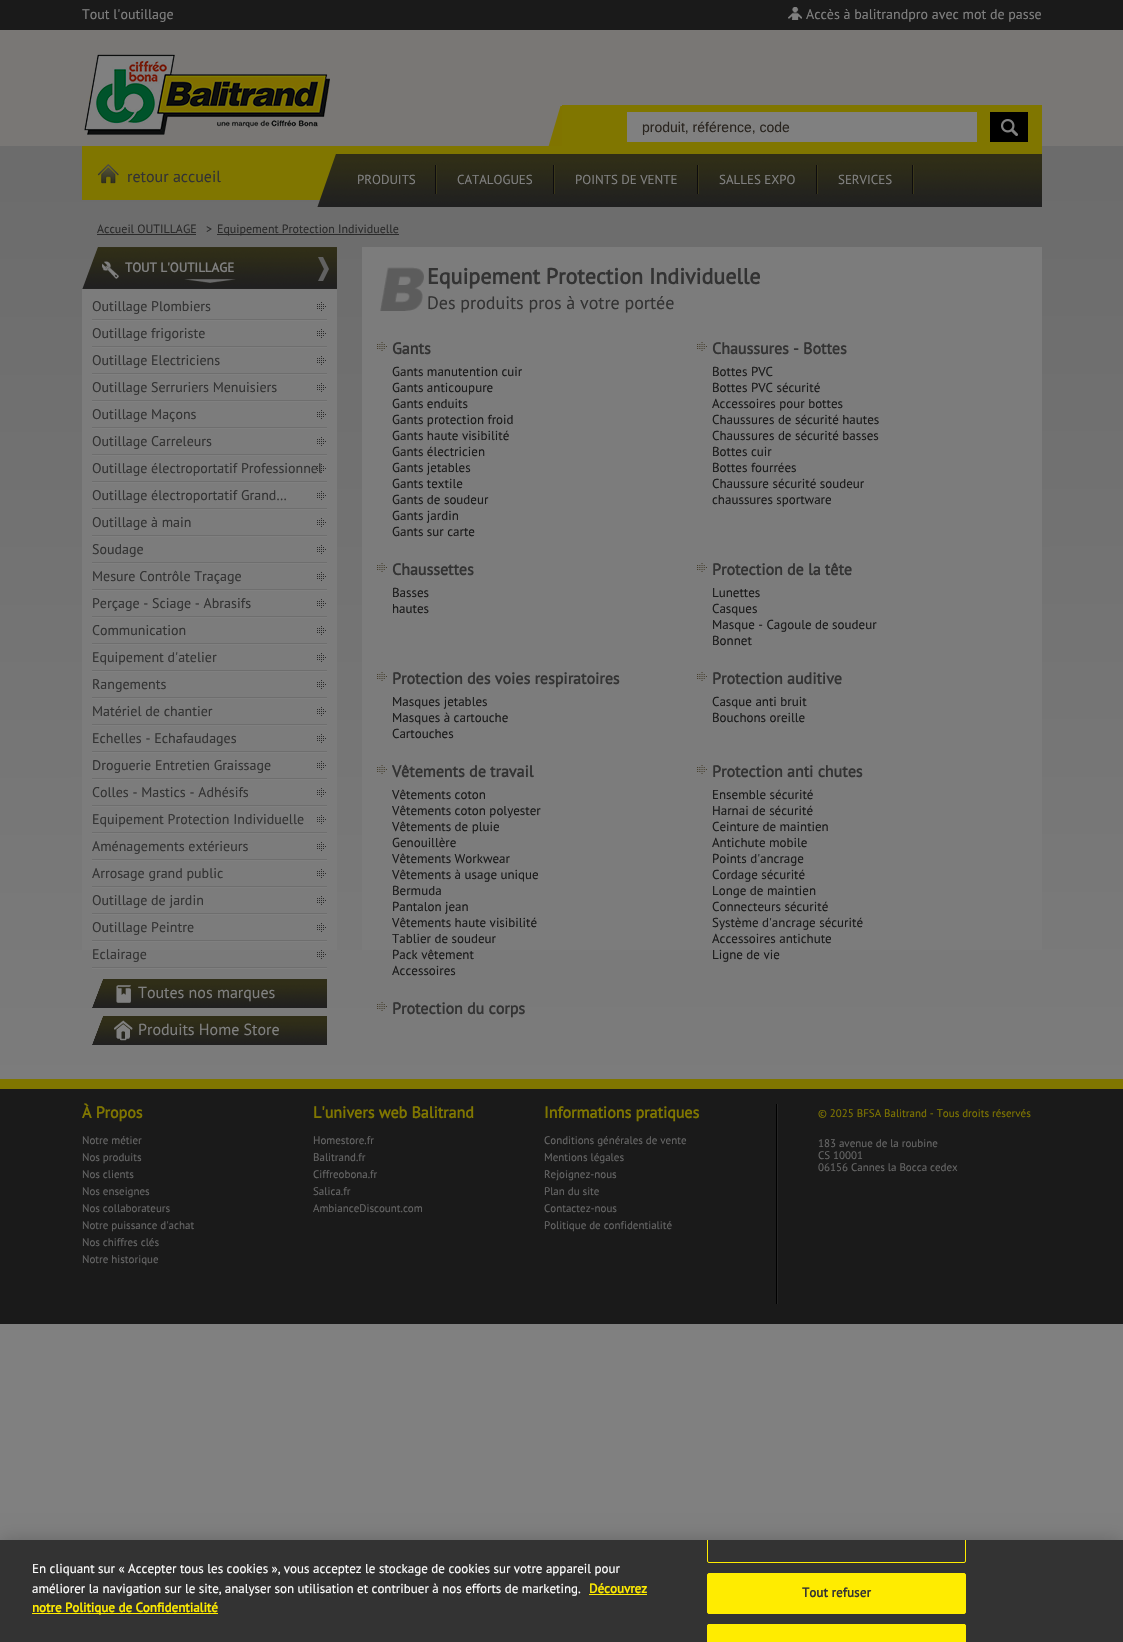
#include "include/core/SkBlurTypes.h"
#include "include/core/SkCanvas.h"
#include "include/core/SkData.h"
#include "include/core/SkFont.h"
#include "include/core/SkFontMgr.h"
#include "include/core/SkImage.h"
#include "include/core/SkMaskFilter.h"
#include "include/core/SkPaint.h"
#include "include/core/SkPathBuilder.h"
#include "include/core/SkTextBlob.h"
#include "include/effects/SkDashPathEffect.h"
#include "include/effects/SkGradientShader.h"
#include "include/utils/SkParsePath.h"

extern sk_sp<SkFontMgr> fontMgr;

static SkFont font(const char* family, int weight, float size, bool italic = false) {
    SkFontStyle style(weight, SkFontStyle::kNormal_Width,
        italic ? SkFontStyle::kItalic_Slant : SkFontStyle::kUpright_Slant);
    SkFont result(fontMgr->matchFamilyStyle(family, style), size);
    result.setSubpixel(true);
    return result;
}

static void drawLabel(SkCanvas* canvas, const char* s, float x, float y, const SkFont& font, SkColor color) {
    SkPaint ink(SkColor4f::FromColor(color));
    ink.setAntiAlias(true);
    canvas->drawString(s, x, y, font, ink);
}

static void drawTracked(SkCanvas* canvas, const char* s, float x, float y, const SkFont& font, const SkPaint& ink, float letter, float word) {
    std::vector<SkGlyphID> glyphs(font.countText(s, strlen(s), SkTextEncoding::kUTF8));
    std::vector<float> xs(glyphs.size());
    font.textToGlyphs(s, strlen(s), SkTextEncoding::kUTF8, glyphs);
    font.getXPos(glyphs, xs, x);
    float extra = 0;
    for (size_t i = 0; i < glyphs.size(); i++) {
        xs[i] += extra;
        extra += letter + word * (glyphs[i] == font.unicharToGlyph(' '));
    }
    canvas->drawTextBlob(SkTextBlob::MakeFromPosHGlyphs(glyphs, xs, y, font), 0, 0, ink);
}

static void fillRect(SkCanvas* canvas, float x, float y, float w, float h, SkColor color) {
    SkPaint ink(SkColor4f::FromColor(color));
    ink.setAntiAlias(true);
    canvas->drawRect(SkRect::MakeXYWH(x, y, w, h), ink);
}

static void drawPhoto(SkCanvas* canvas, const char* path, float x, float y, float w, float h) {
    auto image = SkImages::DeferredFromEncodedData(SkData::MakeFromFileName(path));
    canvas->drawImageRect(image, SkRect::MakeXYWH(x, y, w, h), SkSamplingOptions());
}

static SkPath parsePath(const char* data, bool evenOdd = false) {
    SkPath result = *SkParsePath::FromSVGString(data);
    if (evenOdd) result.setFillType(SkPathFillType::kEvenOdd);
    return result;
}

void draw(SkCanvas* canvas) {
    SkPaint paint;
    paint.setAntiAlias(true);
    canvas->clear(0xFF808080);
    {
        const SkColor colors[] = {0xFF696969, 0xFF808080};
        const float stops[] = {0, 1};
        const SkPoint ends[] = {{561, 0}, {562, 1324}};
        paint.setShader(SkGradientShader::MakeLinear(ends, colors, stops, 2, SkTileMode::kClamp));
        paint.setAlpha(255);
    }
    canvas->drawRect(SkRect::MakeXYWH(0, 146, 1123, 933), paint);
    fillRect(canvas, 0, 0, 1123, 30, 0xFF1A1A1A);
    SkFont font1 = font("PT Sans", 400, 14);
    drawLabel(canvas, "Tout l'outillage", 82, 19, font1, 0xFF808080);
    drawPhoto(canvas, "assets/img1.png", 788, 7, 14, 13);
    drawLabel(canvas, "Accès à balitrandpro avec mot de passe", 806, 19, font1, 0xFF808080);
    fillRect(canvas, 0, 30, 1123, 116, 0xFF797775);
    drawPhoto(canvas, "assets/img2.png", 84, 54, 246, 81);
    drawPhoto(canvas, "assets/img3.png", 548, 106, 14, 40);
    fillRect(canvas, 562, 105, 480, 41, 0xFF807600);
    fillRect(canvas, 627, 112, 350, 30, 0xFF808080);
    SkFont font2 = font("Liberation Sans", 400, 14);
    drawLabel(canvas, "produit, référence, code", 642, 132, font2, 0xFF29241E);
    drawPhoto(canvas, "assets/img4.png", 990, 112, 38, 30);
    fillRect(canvas, 82, 146, 960, 54, 0xFF807600);
    drawPhoto(canvas, "assets/img5.png", 97, 164, 22, 20);
    SkFont font3 = font("PT Sans", 400, 16);
    drawLabel(canvas, "retour accueil", 127, 182, font3, 0xFF333333);
    drawPhoto(canvas, "assets/img6.png", 317, 154, 20, 53);
    drawPhoto(canvas, "assets/img7.png", 337, 154, 705, 53);
    SkFont font4 = font("PT Sans", 400, 13);
    drawLabel(canvas, "PRODUITS", 357, 184, font4, 0xFF808080);
    drawPhoto(canvas, "assets/img8.png", 435, 165, 2, 29);
    drawLabel(canvas, "CATALOGUES", 457, 184, font4, 0xFF808080);
    drawPhoto(canvas, "assets/img8.png", 553, 165, 2, 29);
    drawLabel(canvas, "POINTS DE VENTE", 575, 184, font4, 0xFF808080);
    drawPhoto(canvas, "assets/img8.png", 697, 165, 2, 29);
    drawLabel(canvas, "SALLES EXPO", 719, 184, font4, 0xFF808080);
    drawPhoto(canvas, "assets/img8.png", 816, 165, 2, 29);
    drawLabel(canvas, "SERVICES", 838, 184, font4, 0xFF808080);
    drawPhoto(canvas, "assets/img8.png", 912, 165, 2, 29);
    SkFont font5 = font("PT Sans", 400, 12);
    drawLabel(canvas, "Accueil OUTILLAGE", 97, 233, font5, 0xFF2B2B2B);
    fillRect(canvas, 97, 234, 99, 1, 0xFF2B2B2B);
    drawLabel(canvas, ">", 206, 233, font5, 0xFF2B2B2B);
    fillRect(canvas, 217, 234, 182, 1, 0xFF2B2B2B);
    drawLabel(canvas, "Equipement Protection Individuelle", 217, 233, font5, 0xFF2B2B2B);
    drawPhoto(canvas, "assets/img9.png", 82, 247, 255, 42);
    drawPhoto(canvas, "assets/img10.png", 102, 261, 17, 18);
    SkFont font6 = font("PT Sans", 700, 13);
    drawLabel(canvas, "TOUT L'OUTILLAGE", 125, 272, font6, 0xFF808080);
    drawPhoto(canvas, "assets/img11.png", 184, 279, 52, 4);
    fillRect(canvas, 82, 289, 255, 661, 0xFF7C7C7C);
    drawPhoto(canvas, "assets/img12.png", 317, 302, 9, 9);
    drawLabel(canvas, "Outillage Plombiers", 92, 311, font1, 0xFF333333);
    drawPhoto(canvas, "assets/img13.png", 92, 319, 235, 2);
    drawPhoto(canvas, "assets/img12.png", 317, 329, 9, 9);
    drawLabel(canvas, "Outillage frigoriste", 92, 338, font1, 0xFF333333);
    drawPhoto(canvas, "assets/img13.png", 92, 346, 235, 2);
    drawPhoto(canvas, "assets/img12.png", 317, 356, 9, 9);
    drawLabel(canvas, "Outillage Electriciens", 92, 365, font1, 0xFF333333);
    drawPhoto(canvas, "assets/img13.png", 92, 373, 235, 2);
    drawPhoto(canvas, "assets/img12.png", 317, 383, 9, 9);
    drawLabel(canvas, "Outillage Serruriers Menuisiers", 92, 392, font1, 0xFF333333);
    drawPhoto(canvas, "assets/img13.png", 92, 400, 235, 2);
    drawPhoto(canvas, "assets/img12.png", 317, 410, 9, 9);
    drawLabel(canvas, "Outillage Maçons", 92, 419, font1, 0xFF333333);
    drawPhoto(canvas, "assets/img13.png", 92, 427, 235, 2);
    drawPhoto(canvas, "assets/img12.png", 317, 437, 9, 9);
    drawLabel(canvas, "Outillage Carreleurs", 92, 446, font1, 0xFF333333);
    drawPhoto(canvas, "assets/img13.png", 92, 454, 235, 2);
    drawPhoto(canvas, "assets/img12.png", 317, 464, 9, 9);
    drawLabel(canvas, "Outillage électroportatif Professionnel", 92, 473, font1, 0xFF333333);
    drawPhoto(canvas, "assets/img13.png", 92, 481, 235, 2);
    drawPhoto(canvas, "assets/img12.png", 317, 491, 9, 9);
    drawLabel(canvas, "Outillage électroportatif Grand…", 92, 500, font1, 0xFF333333);
    drawPhoto(canvas, "assets/img13.png", 92, 508, 235, 2);
    drawPhoto(canvas, "assets/img12.png", 317, 518, 9, 9);
    drawLabel(canvas, "Outillage à main", 92, 527, font1, 0xFF333333);
    drawPhoto(canvas, "assets/img13.png", 92, 535, 235, 2);
    drawPhoto(canvas, "assets/img12.png", 317, 545, 9, 9);
    drawLabel(canvas, "Soudage", 92, 554, font1, 0xFF333333);
    drawPhoto(canvas, "assets/img13.png", 92, 562, 235, 2);
    drawPhoto(canvas, "assets/img12.png", 317, 572, 9, 9);
    drawLabel(canvas, "Mesure Contrôle Traçage", 92, 581, font1, 0xFF333333);
    drawPhoto(canvas, "assets/img13.png", 92, 589, 235, 2);
    drawPhoto(canvas, "assets/img12.png", 317, 599, 9, 9);
    drawLabel(canvas, "Perçage - Sciage - Abrasifs", 92, 608, font1, 0xFF333333);
    drawPhoto(canvas, "assets/img13.png", 92, 616, 235, 2);
    drawPhoto(canvas, "assets/img12.png", 317, 626, 9, 9);
    drawLabel(canvas, "Communication", 92, 635, font1, 0xFF333333);
    drawPhoto(canvas, "assets/img13.png", 92, 643, 235, 2);
    drawPhoto(canvas, "assets/img12.png", 317, 653, 9, 9);
    drawLabel(canvas, "Equipement d'atelier", 92, 662, font1, 0xFF333333);
    drawPhoto(canvas, "assets/img13.png", 92, 670, 235, 2);
    drawPhoto(canvas, "assets/img12.png", 317, 680, 9, 9);
    drawLabel(canvas, "Rangements", 92, 689, font1, 0xFF333333);
    drawPhoto(canvas, "assets/img13.png", 92, 697, 235, 2);
    drawPhoto(canvas, "assets/img12.png", 317, 707, 9, 9);
    drawLabel(canvas, "Matériel de chantier", 92, 716, font1, 0xFF333333);
    drawPhoto(canvas, "assets/img13.png", 92, 724, 235, 2);
    drawPhoto(canvas, "assets/img12.png", 317, 734, 9, 9);
    drawLabel(canvas, "Echelles - Echafaudages", 92, 743, font1, 0xFF333333);
    drawPhoto(canvas, "assets/img13.png", 92, 751, 235, 2);
    drawPhoto(canvas, "assets/img12.png", 317, 761, 9, 9);
    drawLabel(canvas, "Droguerie Entretien Graissage", 92, 770, font1, 0xFF333333);
    drawPhoto(canvas, "assets/img13.png", 92, 778, 235, 2);
    drawPhoto(canvas, "assets/img12.png", 317, 788, 9, 9);
    drawLabel(canvas, "Colles - Mastics - Adhésifs", 92, 797, font1, 0xFF333333);
    drawPhoto(canvas, "assets/img13.png", 92, 805, 235, 2);
    drawPhoto(canvas, "assets/img12.png", 317, 815, 9, 9);
    drawLabel(canvas, "Equipement Protection Individuelle", 92, 824, font1, 0xFF333333);
    drawPhoto(canvas, "assets/img13.png", 92, 832, 235, 2);
    drawPhoto(canvas, "assets/img12.png", 317, 842, 9, 9);
    drawLabel(canvas, "Aménagements extérieurs", 92, 851, font1, 0xFF333333);
    drawPhoto(canvas, "assets/img13.png", 92, 859, 235, 2);
    drawPhoto(canvas, "assets/img12.png", 317, 869, 9, 9);
    drawLabel(canvas, "Arrosage grand public", 92, 878, font1, 0xFF333333);
    drawPhoto(canvas, "assets/img13.png", 92, 886, 235, 2);
    drawPhoto(canvas, "assets/img12.png", 317, 896, 9, 9);
    drawLabel(canvas, "Outillage de jardin", 92, 905, font1, 0xFF333333);
    drawPhoto(canvas, "assets/img13.png", 92, 913, 235, 2);
    drawPhoto(canvas, "assets/img12.png", 317, 923, 9, 9);
    drawLabel(canvas, "Outillage Peintre", 92, 932, font1, 0xFF333333);
    drawPhoto(canvas, "assets/img13.png", 92, 940, 235, 2);
    drawPhoto(canvas, "assets/img12.png", 317, 950, 9, 9);
    drawLabel(canvas, "Eclairage", 92, 959, font1, 0xFF333333);
    drawPhoto(canvas, "assets/img13.png", 92, 967, 235, 2);
    drawPhoto(canvas, "assets/img14.png", 92, 979, 235, 29);
    drawPhoto(canvas, "assets/img15.png", 116, 985, 15, 18);
    drawLabel(canvas, "Toutes nos marques", 138, 998, font3, 0xFF808080);
    drawPhoto(canvas, "assets/img14.png", 92, 1016, 235, 29);
    drawPhoto(canvas, "assets/img16.png", 114, 1020, 19, 21);
    drawLabel(canvas, "Produits Home Store", 138, 1035, font3, 0xFF808080);
    fillRect(canvas, 362, 247, 680, 703, 0xFF7C7C7C);
    drawPhoto(canvas, "assets/img17.png", 380, 267, 44, 44);
    SkFont font7 = font("PT Sans", 700, 22);
    drawLabel(canvas, "Equipement Protection Individuelle", 427, 284, font7, 0xFF333333);
    SkFont font8 = font("PT Sans", 400, 18);
    drawLabel(canvas, "Des produits pros à votre portée", 427, 309, font8, 0xFF333333);
    drawPhoto(canvas, "assets/img18.png", 377, 342, 10, 9);
    SkFont font9 = font("PT Sans", 700, 16);
    drawLabel(canvas, "Gants", 392, 354, font9, 0xFF333333);
    drawLabel(canvas, "Gants manutention cuir", 392, 376, font4, 0xFF1A1A1A);
    drawLabel(canvas, "Gants anticoupure", 392, 392, font4, 0xFF1A1A1A);
    drawLabel(canvas, "Gants enduits", 392, 408, font4, 0xFF1A1A1A);
    drawLabel(canvas, "Gants protection froid", 392, 424, font4, 0xFF1A1A1A);
    drawLabel(canvas, "Gants haute visibilité", 392, 440, font4, 0xFF1A1A1A);
    drawLabel(canvas, "Gants électricien", 392, 456, font4, 0xFF1A1A1A);
    drawLabel(canvas, "Gants jetables", 392, 472, font4, 0xFF1A1A1A);
    drawLabel(canvas, "Gants textile", 392, 488, font4, 0xFF1A1A1A);
    drawLabel(canvas, "Gants de soudeur", 392, 504, font4, 0xFF1A1A1A);
    drawLabel(canvas, "Gants jardin", 392, 520, font4, 0xFF1A1A1A);
    drawLabel(canvas, "Gants sur carte", 392, 536, font4, 0xFF1A1A1A);
    drawPhoto(canvas, "assets/img19.png", 697, 342, 10, 9);
    drawLabel(canvas, "Chaussures - Bottes", 712, 354, font9, 0xFF333333);
    drawLabel(canvas, "Bottes PVC", 712, 376, font4, 0xFF1A1A1A);
    drawLabel(canvas, "Bottes PVC sécurité", 712, 392, font4, 0xFF1A1A1A);
    drawLabel(canvas, "Accessoires pour bottes", 712, 408, font4, 0xFF1A1A1A);
    drawLabel(canvas, "Chaussures de sécurité hautes", 712, 424, font4, 0xFF1A1A1A);
    drawLabel(canvas, "Chaussures de sécurité basses", 712, 440, font4, 0xFF1A1A1A);
    drawLabel(canvas, "Bottes cuir", 712, 456, font4, 0xFF1A1A1A);
    drawLabel(canvas, "Bottes fourrées", 712, 472, font4, 0xFF1A1A1A);
    drawLabel(canvas, "Chaussure sécurité soudeur", 712, 488, font4, 0xFF1A1A1A);
    drawLabel(canvas, "chaussures sportware", 712, 504, font4, 0xFF1A1A1A);
    drawPhoto(canvas, "assets/img18.png", 377, 563, 10, 9);
    drawLabel(canvas, "Chaussettes", 392, 575, font9, 0xFF333333);
    drawLabel(canvas, "Basses", 392, 597, font4, 0xFF1A1A1A);
    drawLabel(canvas, "hautes", 392, 613, font4, 0xFF1A1A1A);
    drawPhoto(canvas, "assets/img19.png", 697, 563, 10, 9);
    drawLabel(canvas, "Protection de la tête", 712, 575, font9, 0xFF333333);
    drawLabel(canvas, "Lunettes", 712, 597, font4, 0xFF1A1A1A);
    drawLabel(canvas, "Casques", 712, 613, font4, 0xFF1A1A1A);
    drawLabel(canvas, "Masque - Cagoule de soudeur", 712, 629, font4, 0xFF1A1A1A);
    drawLabel(canvas, "Bonnet", 712, 645, font4, 0xFF1A1A1A);
    drawPhoto(canvas, "assets/img18.png", 377, 672, 10, 9);
    drawLabel(canvas, "Protection des voies respiratoires", 392, 684, font9, 0xFF333333);
    drawLabel(canvas, "Masques jetables", 392, 706, font4, 0xFF1A1A1A);
    drawLabel(canvas, "Masques à cartouche", 392, 722, font4, 0xFF1A1A1A);
    drawLabel(canvas, "Cartouches", 392, 738, font4, 0xFF1A1A1A);
    drawPhoto(canvas, "assets/img19.png", 697, 672, 10, 9);
    drawLabel(canvas, "Protection auditive", 712, 684, font9, 0xFF333333);
    drawLabel(canvas, "Casque anti bruit", 712, 706, font4, 0xFF1A1A1A);
    drawLabel(canvas, "Bouchons oreille", 712, 722, font4, 0xFF1A1A1A);
    drawPhoto(canvas, "assets/img18.png", 377, 765, 10, 9);
    drawLabel(canvas, "Vêtements de travail", 392, 777, font9, 0xFF333333);
    drawLabel(canvas, "Vêtements coton", 392, 799, font4, 0xFF1A1A1A);
    drawLabel(canvas, "Vêtements coton polyester", 392, 815, font4, 0xFF1A1A1A);
    drawLabel(canvas, "Vêtements de pluie", 392, 831, font4, 0xFF1A1A1A);
    drawLabel(canvas, "Genouillère", 392, 847, font4, 0xFF1A1A1A);
    drawLabel(canvas, "Vêtements Workwear", 392, 863, font4, 0xFF1A1A1A);
    drawLabel(canvas, "Vêtements à usage unique", 392, 879, font4, 0xFF1A1A1A);
    drawLabel(canvas, "Bermuda", 392, 895, font4, 0xFF1A1A1A);
    drawLabel(canvas, "Pantalon jean", 392, 911, font4, 0xFF1A1A1A);
    drawLabel(canvas, "Vêtements haute visibilité", 392, 927, font4, 0xFF1A1A1A);
    drawLabel(canvas, "Tablier de soudeur", 392, 943, font4, 0xFF1A1A1A);
    drawLabel(canvas, "Pack vêtement", 392, 959, font4, 0xFF1A1A1A);
    drawLabel(canvas, "Accessoires", 392, 975, font4, 0xFF1A1A1A);
    drawPhoto(canvas, "assets/img19.png", 697, 765, 10, 9);
    drawLabel(canvas, "Protection anti chutes", 712, 777, font9, 0xFF333333);
    drawLabel(canvas, "Ensemble sécurité", 712, 799, font4, 0xFF1A1A1A);
    drawLabel(canvas, "Harnai de sécurité", 712, 815, font4, 0xFF1A1A1A);
    drawLabel(canvas, "Ceinture de maintien", 712, 831, font4, 0xFF1A1A1A);
    drawLabel(canvas, "Antichute mobile", 712, 847, font4, 0xFF1A1A1A);
    drawLabel(canvas, "Points d'ancrage", 712, 863, font4, 0xFF1A1A1A);
    drawLabel(canvas, "Cordage sécurité", 712, 879, font4, 0xFF1A1A1A);
    drawLabel(canvas, "Longe de maintien", 712, 895, font4, 0xFF1A1A1A);
    drawLabel(canvas, "Connecteurs sécurité", 712, 911, font4, 0xFF1A1A1A);
    drawLabel(canvas, "Système d'ancrage sécurité", 712, 927, font4, 0xFF1A1A1A);
    drawLabel(canvas, "Accessoires antichute", 712, 943, font4, 0xFF1A1A1A);
    drawLabel(canvas, "Ligne de vie", 712, 959, font4, 0xFF1A1A1A);
    drawPhoto(canvas, "assets/img18.png", 377, 1002, 10, 9);
    drawLabel(canvas, "Protection du corps", 392, 1014, font9, 0xFF333333);
    fillRect(canvas, 0, 1089, 1123, 235, 0xFF1A1A1A);
    fillRect(canvas, 0, 1079, 1123, 10, 0xFF807600);
    fillRect(canvas, 776, 1104, 1, 200, 0xFF000000);
    drawLabel(canvas, "À Propos", 82, 1118, font9, 0xFF807600);
    SkFont font10 = font("PT Sans", 400, 11);
    drawLabel(canvas, "Notre métier", 82, 1144, font10, 0xFF666666);
    drawLabel(canvas, "Nos produits", 82, 1161, font10, 0xFF666666);
    drawLabel(canvas, "Nos clients", 82, 1178, font10, 0xFF666666);
    drawLabel(canvas, "Nos enseignes", 82, 1195, font10, 0xFF666666);
    drawLabel(canvas, "Nos collaborateurs", 82, 1212, font10, 0xFF666666);
    drawLabel(canvas, "Notre puissance d'achat", 82, 1229, font10, 0xFF666666);
    drawLabel(canvas, "Nos chiffres clés", 82, 1246, font10, 0xFF666666);
    drawLabel(canvas, "Notre historique", 82, 1263, font10, 0xFF666666);
    drawLabel(canvas, "L'univers web Balitrand", 313, 1118, font9, 0xFF807600);
    drawLabel(canvas, "Homestore.fr", 313, 1144, font10, 0xFF666666);
    drawLabel(canvas, "Balitrand.fr", 313, 1161, font10, 0xFF666666);
    drawLabel(canvas, "Ciffreobona.fr", 313, 1178, font10, 0xFF666666);
    drawLabel(canvas, "Salica.fr", 313, 1195, font10, 0xFF666666);
    drawLabel(canvas, "AmbianceDiscount.com", 313, 1212, font10, 0xFF666666);
    drawLabel(canvas, "Informations pratiques", 544, 1118, font9, 0xFF807600);
    drawLabel(canvas, "Conditions générales de vente", 544, 1144, font10, 0xFF666666);
    drawLabel(canvas, "Mentions légales", 544, 1161, font10, 0xFF666666);
    drawLabel(canvas, "Rejoignez-nous", 544, 1178, font10, 0xFF666666);
    drawLabel(canvas, "Plan du site", 544, 1195, font10, 0xFF666666);
    drawLabel(canvas, "Contactez-nous", 544, 1212, font10, 0xFF666666);
    drawLabel(canvas, "Politique de confidentialité", 544, 1229, font10, 0xFF666666);
    fillRect(canvas, 777, 1104, 1, 200, 0xFF252525);
    drawLabel(canvas, "© 2025 BFSA Balitrand - Tous droits réservés", 818, 1117, font10, 0xFF807600);
    drawLabel(canvas, "183 avenue de la roubine", 818, 1147, font10, 0xFF666666);
    drawLabel(canvas, "CS 10001", 818, 1159, font10, 0xFF666666);
    drawLabel(canvas, "06156 Cannes la Bocca cedex", 818, 1171, font10, 0xFF666666);
    paint.setShader(nullptr);
    paint.setColor(0x33000000);
    paint.setMaskFilter(SkMaskFilter::MakeBlur(kNormal_SkBlurStyle, 9));
    canvas->drawRect(SkRect::MakeXYWH(0, 1540, 1123, 102), paint);
    paint.setMaskFilter(nullptr);
    fillRect(canvas, 0, 1540, 1123, 102, 0xFF333333);
    drawLabel(canvas, "En cliquant sur « Accepter tous les cookies », vous acceptez le stockage de cookies sur votre appareil pour", 32, 1573, font4, 0xFFFFFFFF);
    drawLabel(canvas, "améliorer la navigation sur le site, analyser son utilisation et contribuer à nos efforts de marketing.", 32, 1593, font4, 0xFFFFFFFF);
    drawLabel(canvas, "Découvrez", 589, 1593, font6, 0xFFFFEC00);
    fillRect(canvas, 589, 1594, 58, 1, 0xFFFFEC00);
    fillRect(canvas, 32, 1613, 186, 1, 0xFFFFEC00);
    drawLabel(canvas, "notre Politique de Confidentialité", 32, 1612, font6, 0xFFFFEC00);
    canvas->save();
    canvas->clipRect(SkRect::MakeXYWH(0, 1540, 1123, 102));
    paint.setStroke(true);
    paint.setStrokeWidth(1);
    paint.setColor(0xFFFFEC00);
    canvas->drawRoundRect(SkRect::MakeXYWH(707.5f, 1521.5f, 258, 41), 1.5f, 1.5f, paint);
    canvas->restore();
    paint.setStroke(false);
    canvas->drawRoundRect(SkRect::MakeXYWH(707.5f, 1573.5f, 258, 40), 1.5f, 1.5f, paint);
    paint.setStroke(true);
    canvas->drawRoundRect(SkRect::MakeXYWH(707.5f, 1573.5f, 258, 40), 1.5f, 1.5f, paint);
    paint.setStroke(false);
    paint.setColor(0xFF333333);
    drawTracked(canvas, "Tout refuser", 802, 1597, font6, paint, 0.1f, 0);
    paint.setColor(0xFFFFEC00);
    canvas->drawPath(parsePath("M709 1624H964C965 1624 966 1625 966 1626V1642H707V1626C707 1625 708 1624 709 1624Z"), paint);
    paint.setStroke(true);
    canvas->drawRoundRect(SkRect::MakeXYWH(707.5f, 1624.5f, 258, 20), 1.5f, 1.5f, paint);
}
